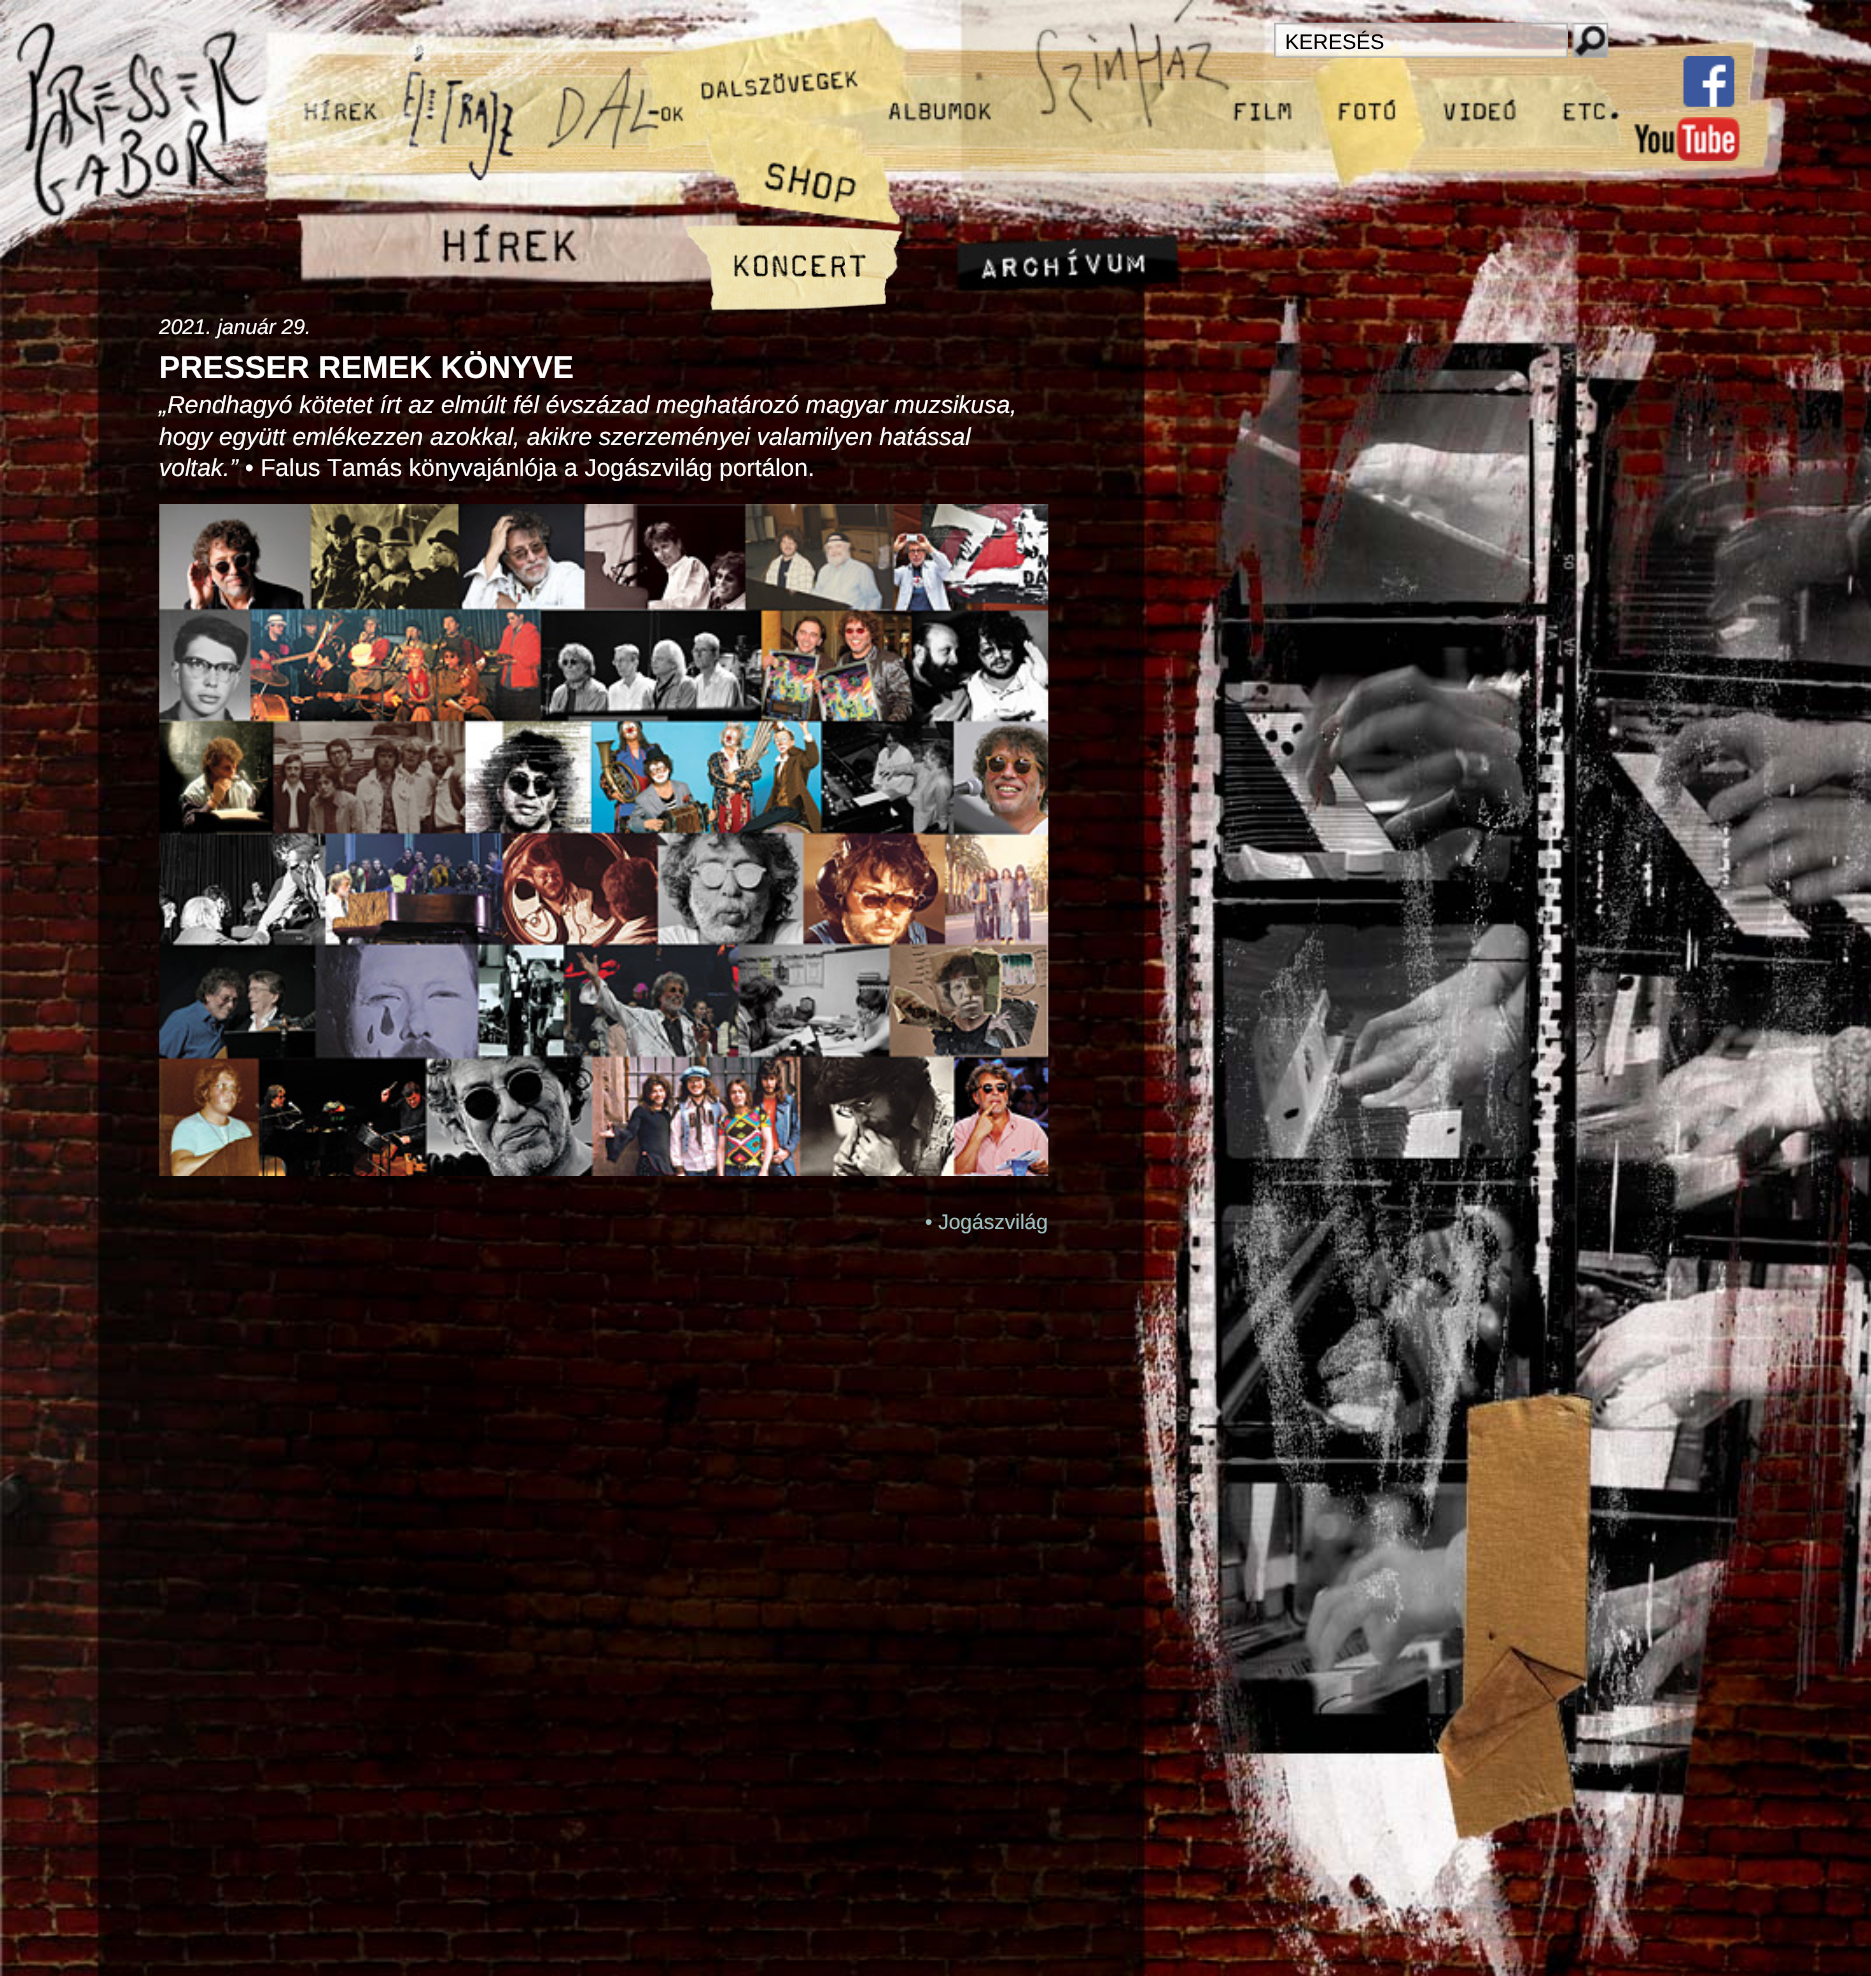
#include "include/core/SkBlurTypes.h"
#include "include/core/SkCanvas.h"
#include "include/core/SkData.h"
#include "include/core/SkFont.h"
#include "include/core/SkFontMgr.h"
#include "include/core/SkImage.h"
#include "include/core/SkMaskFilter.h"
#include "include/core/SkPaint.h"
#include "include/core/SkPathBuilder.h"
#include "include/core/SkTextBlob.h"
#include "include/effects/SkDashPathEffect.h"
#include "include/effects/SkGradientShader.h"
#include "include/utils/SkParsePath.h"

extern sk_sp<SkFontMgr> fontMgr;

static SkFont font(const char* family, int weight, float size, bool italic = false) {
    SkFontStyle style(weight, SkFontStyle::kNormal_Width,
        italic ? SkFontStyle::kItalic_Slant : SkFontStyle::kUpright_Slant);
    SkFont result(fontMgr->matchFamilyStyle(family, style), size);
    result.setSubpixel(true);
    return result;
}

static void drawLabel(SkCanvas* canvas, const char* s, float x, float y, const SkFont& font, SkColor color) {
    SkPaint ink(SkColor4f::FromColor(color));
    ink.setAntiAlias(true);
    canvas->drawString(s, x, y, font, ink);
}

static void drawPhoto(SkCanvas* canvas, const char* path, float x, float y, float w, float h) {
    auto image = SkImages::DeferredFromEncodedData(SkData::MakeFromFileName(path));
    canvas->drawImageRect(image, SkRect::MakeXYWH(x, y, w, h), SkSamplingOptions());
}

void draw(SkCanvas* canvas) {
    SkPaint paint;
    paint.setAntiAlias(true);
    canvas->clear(0xFFFFFFFF);
    drawPhoto(canvas, "assets/img19.png", 0, 0, 1871, 1976);
    drawPhoto(canvas, "assets/img1.png", 0, 0, 265, 219);
    drawPhoto(canvas, "assets/img2.png", 960, 0, 306, 203);
    drawPhoto(canvas, "assets/img3.png", 1274, 22, 294, 36);
    SkFont font1 = font("Liberation Sans", 400, 21);
    drawLabel(canvas, "KERESÉS", 1285, 49, font1, 0xFF000000);
    drawPhoto(canvas, "assets/img4.png", 1571, 22, 38, 36);
    drawPhoto(canvas, "assets/img6.png", 530, 42, 197, 121);
    drawPhoto(canvas, "assets/img5.png", 393, 43, 143, 138);
    drawPhoto(canvas, "assets/img7.png", 688, 59, 170, 48);
    drawPhoto(canvas, "assets/img8.png", 1683, 56, 52, 51);
    drawPhoto(canvas, "assets/img9.png", 262, 98, 130, 37);
    drawPhoto(canvas, "assets/img10.png", 729, 136, 171, 89);
    drawPhoto(canvas, "assets/img11.png", 885, 96, 118, 39);
    drawPhoto(canvas, "assets/img12.png", 1220, 94, 84, 41);
    drawPhoto(canvas, "assets/img13.png", 1324, 92, 81, 39);
    drawPhoto(canvas, "assets/img14.png", 1437, 91, 84, 40);
    drawPhoto(canvas, "assets/img15.png", 1559, 92, 86, 47);
    drawPhoto(canvas, "assets/img16.png", 1634, 117, 106, 44);
    drawPhoto(canvas, "assets/img17.png", 685, 225, 239, 86);
    drawPhoto(canvas, "assets/img18.png", 953, 232, 229, 61);
    SkFont font2 = font("Liberation Sans", 400, 21, true);
    drawLabel(canvas, "2021. január 29.", 159, 334, font2, 0xFFFFFFFF);
    SkFont font3 = font("Liberation Sans", 700, 31.5f);
    drawLabel(canvas, "PRESSER REMEK KÖNYVE", 159, 378, font3, 0xFFFFFFFF);
    SkFont font4 = font("Liberation Sans", 400, 24.5f, true);
    drawLabel(canvas, "„Rendhagyó kötetet írt az elmúlt fél évszázad meghatározó magyar muzsikusa,", 159, 413, font4, 0xFFFFFFFF);
    drawLabel(canvas, "hogy együtt emlékezzen azokkal, akikre szerzeményei valamilyen hatással", 159, 445, font4, 0xFFFFFFFF);
    drawLabel(canvas, "voltak.”", 159, 476, font4, 0xFFFFFFFF);
    SkFont font5 = font("Liberation Sans", 400, 24.5f);
    drawLabel(canvas, "• Falus Tamás könyvajánlója a Jogászvilág portálon.", 245, 476, font5, 0xFFFFFFFF);
    drawPhoto(canvas, "assets/img20.png", 159, 504, 890, 672);
    drawLabel(canvas, "• Jogászvilág", 925, 1229, font1, 0xFF9FC1C3);
}
